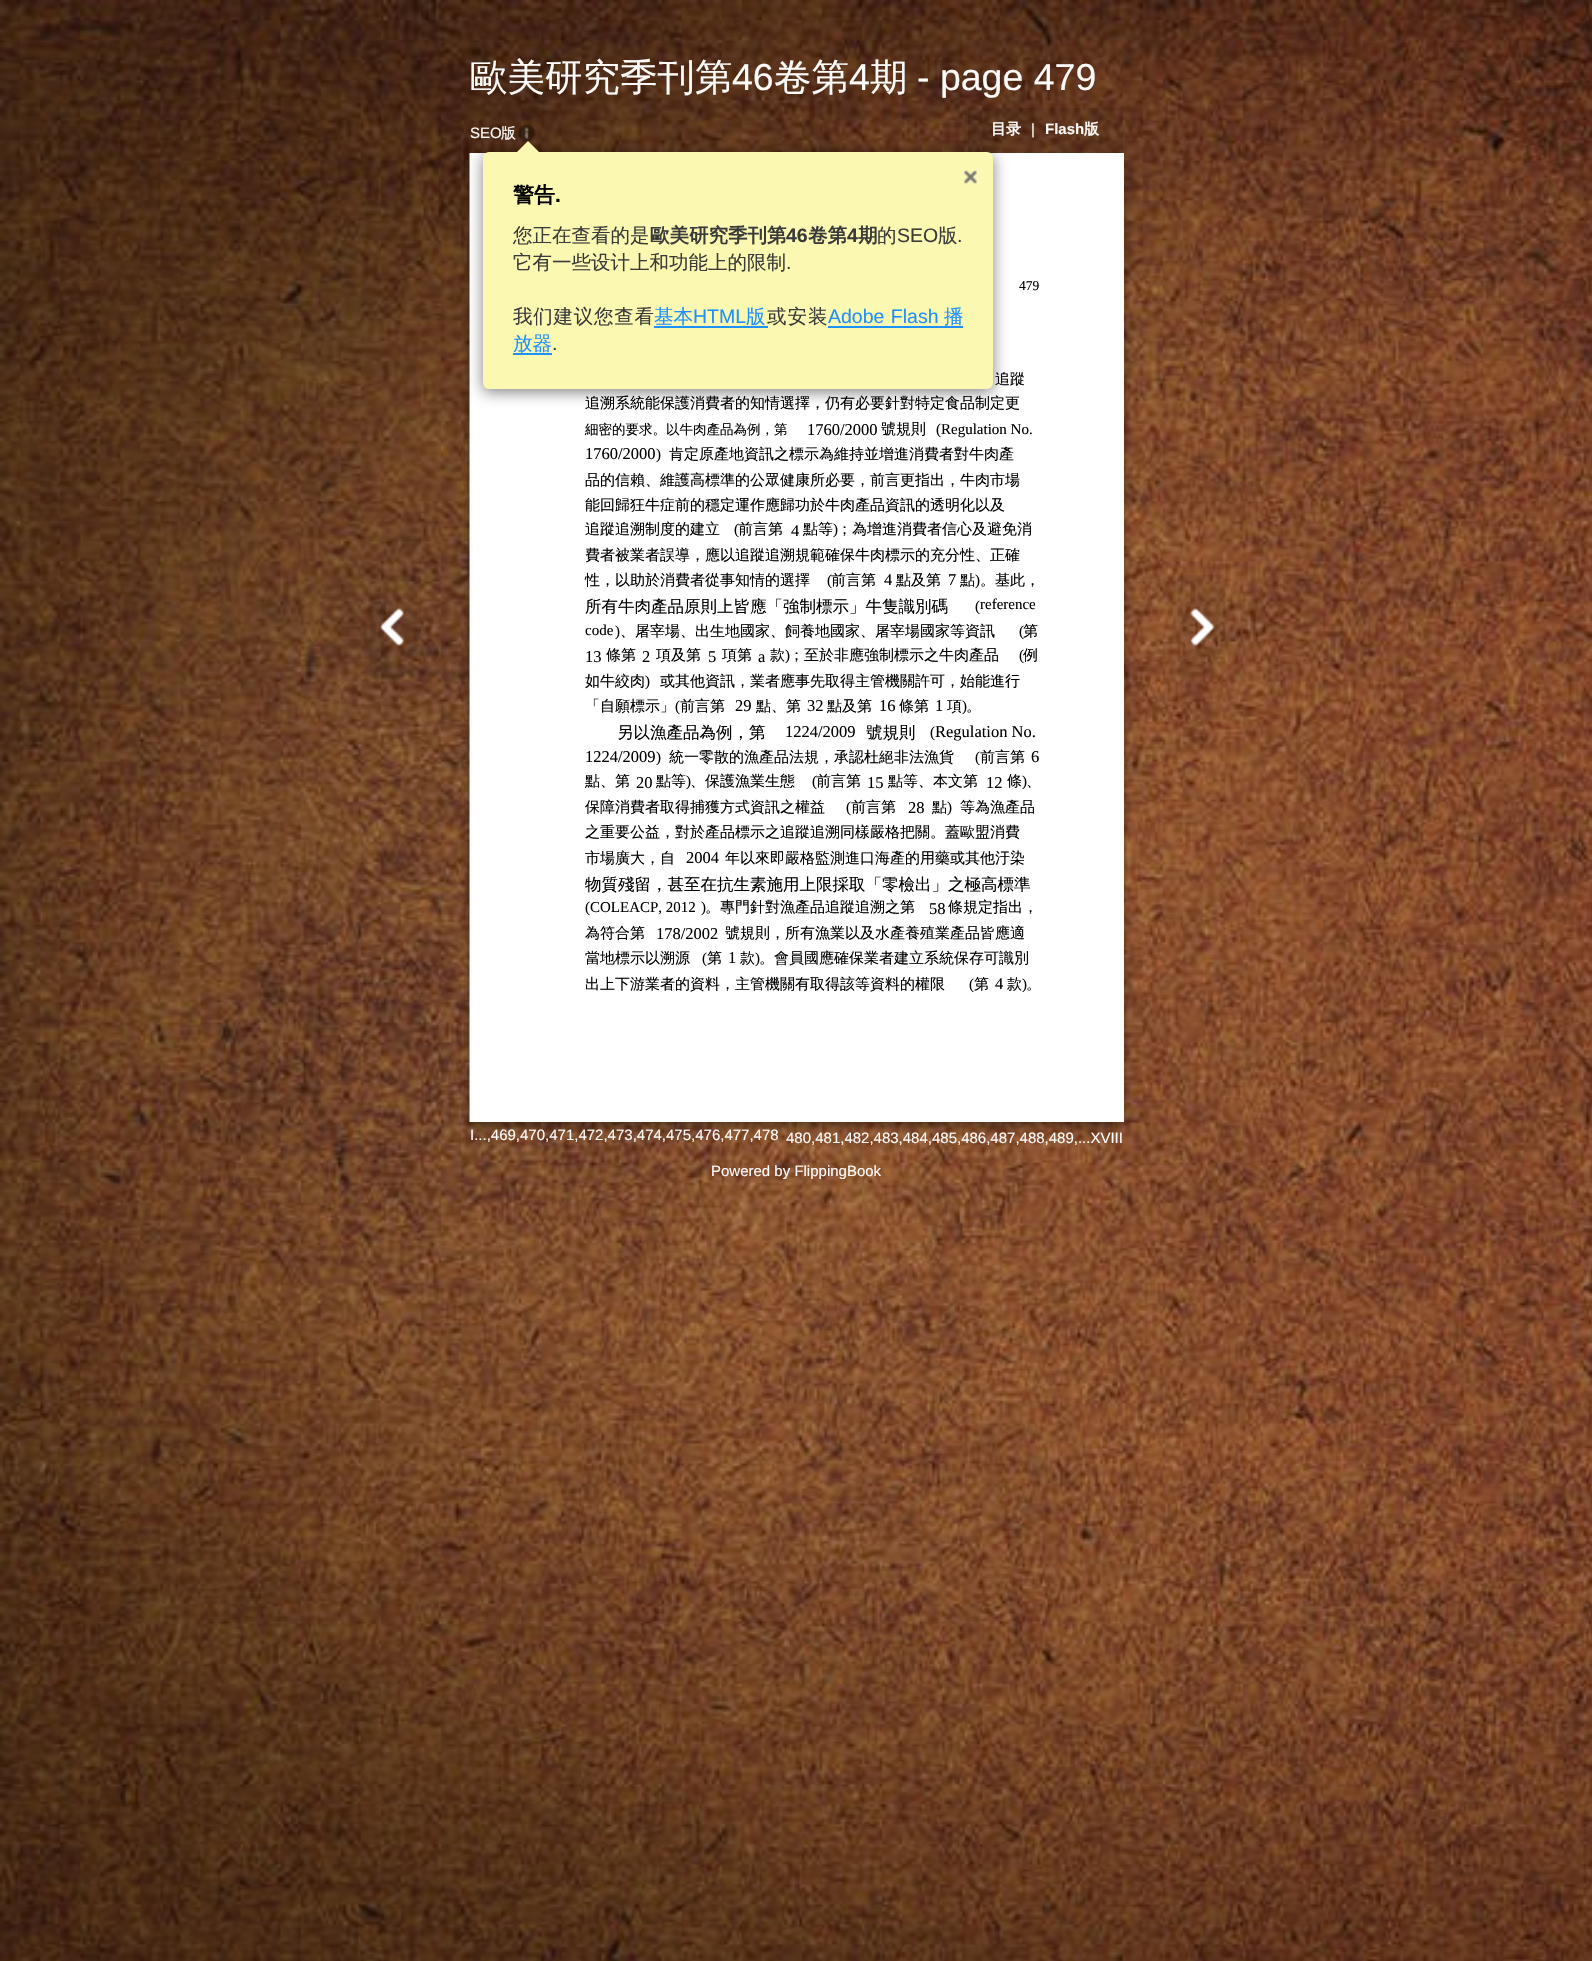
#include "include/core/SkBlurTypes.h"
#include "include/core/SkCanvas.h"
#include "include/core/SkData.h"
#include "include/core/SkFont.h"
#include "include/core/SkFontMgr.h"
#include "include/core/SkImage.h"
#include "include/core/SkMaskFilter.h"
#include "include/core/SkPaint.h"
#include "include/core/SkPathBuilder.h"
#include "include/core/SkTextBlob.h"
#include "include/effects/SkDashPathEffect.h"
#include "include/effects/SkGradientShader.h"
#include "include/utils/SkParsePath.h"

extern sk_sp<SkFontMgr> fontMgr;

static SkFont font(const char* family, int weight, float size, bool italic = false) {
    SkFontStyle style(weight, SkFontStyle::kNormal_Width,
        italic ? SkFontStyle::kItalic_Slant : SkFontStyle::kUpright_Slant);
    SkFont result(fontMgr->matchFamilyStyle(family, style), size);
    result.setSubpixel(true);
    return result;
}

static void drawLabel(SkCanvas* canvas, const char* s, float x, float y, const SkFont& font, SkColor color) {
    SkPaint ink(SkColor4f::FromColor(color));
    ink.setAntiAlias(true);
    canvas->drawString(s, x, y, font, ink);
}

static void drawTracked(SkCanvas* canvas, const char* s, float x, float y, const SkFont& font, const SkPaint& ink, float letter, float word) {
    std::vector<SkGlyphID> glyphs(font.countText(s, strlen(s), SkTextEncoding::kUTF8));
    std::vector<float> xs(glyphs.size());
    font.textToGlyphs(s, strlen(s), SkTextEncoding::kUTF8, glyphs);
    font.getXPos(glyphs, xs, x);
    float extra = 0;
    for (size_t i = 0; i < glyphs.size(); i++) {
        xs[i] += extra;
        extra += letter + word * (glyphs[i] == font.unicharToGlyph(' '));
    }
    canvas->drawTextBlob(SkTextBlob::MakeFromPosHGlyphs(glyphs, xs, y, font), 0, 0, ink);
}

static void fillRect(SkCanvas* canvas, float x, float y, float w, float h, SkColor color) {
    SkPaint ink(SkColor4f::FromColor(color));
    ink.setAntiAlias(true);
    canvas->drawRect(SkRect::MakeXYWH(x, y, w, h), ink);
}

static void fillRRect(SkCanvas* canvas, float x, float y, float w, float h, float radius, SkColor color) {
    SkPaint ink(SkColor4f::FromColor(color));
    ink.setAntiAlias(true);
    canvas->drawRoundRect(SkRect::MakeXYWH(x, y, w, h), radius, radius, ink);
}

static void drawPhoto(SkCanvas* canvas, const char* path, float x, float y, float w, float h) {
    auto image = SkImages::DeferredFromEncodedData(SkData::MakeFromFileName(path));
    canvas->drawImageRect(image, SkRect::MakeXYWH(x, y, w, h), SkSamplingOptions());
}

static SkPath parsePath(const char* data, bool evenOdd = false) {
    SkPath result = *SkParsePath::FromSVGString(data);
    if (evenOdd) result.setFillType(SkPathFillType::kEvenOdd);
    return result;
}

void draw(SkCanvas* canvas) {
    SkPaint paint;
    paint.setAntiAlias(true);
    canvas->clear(0xFFFFFFFF);
    drawPhoto(canvas, "assets/img1.png", 0, 0, 1592, 1961);
    SkFont font1 = font("WenQuanYi Zen Hei", 500, 37.5f);
    drawLabel(canvas, "歐美研究季刊第", 470, 90, font1, 0xFFFCFBFA);
    SkFont font2 = font("Liberation Sans", 400, 37.5f);
    drawLabel(canvas, "46", 732, 90, font2, 0xFFFCFBFA);
    drawLabel(canvas, "卷第", 774, 90, font1, 0xFFFCFBFA);
    drawLabel(canvas, "4", 849, 90, font2, 0xFFFCFBFA);
    drawLabel(canvas, "期", 870, 90, font1, 0xFFFCFBFA);
    drawLabel(canvas, "- page 479", 917, 90, font2, 0xFFFCFBFA);
    paint.setColor(0x66000000);
    paint.setMaskFilter(SkMaskFilter::MakeBlur(kNormal_SkBlurStyle, 4.5f));
    canvas->drawRect(SkRect::MakeXYWH(470, 158, 654, 969), paint);
    paint.setMaskFilter(nullptr);
    fillRect(canvas, 470, 153, 654, 969, 0xFFFFFFFF);
    fillRect(canvas, 469, 153, 1, 969, 0x80FFFFFF);
    SkFont font3 = font("Liberation Sans", 400, 15);
    drawLabel(canvas, "SEO", 470, 138, font3, 0xFFFCFBFA);
    SkFont font4 = font("WenQuanYi Zen Hei", 500, 15);
    drawLabel(canvas, "版", 501, 138, font4, 0xFFFCFBFA);
    drawPhoto(canvas, "assets/img2.png", 517, 124, 19, 19);
    fillRect(canvas, 968, 108, 155, 45, 0x1A000000);
    paint.setColor(0x80000000);
    paint.setMaskFilter(SkMaskFilter::MakeBlur(kNormal_SkBlurStyle, 7.5f));
    canvas->drawRoundRect(SkRect::MakeXYWH(483, 155, 510, 237), 6, 6, paint);
    paint.setMaskFilter(nullptr);
    fillRRect(canvas, 483, 152, 510, 237, 6, 0xFFFAF8B1);
    paint.setColor(0xFFFAF8B1);
    canvas->drawPath(parsePath("M543 156H513L528 141Z"), paint);
    drawPhoto(canvas, "assets/img3.png", 964, 170, 13, 14);
    SkFont font5 = font("WenQuanYi Zen Hei", 700, 21);
    drawLabel(canvas, "警告", 513, 202, font5, 0xFF000000);
    SkFont font6 = font("Liberation Sans", 700, 21);
    drawLabel(canvas, ".", 555, 202, font6, 0xFF000000);
    SkFont font7 = font("WenQuanYi Zen Hei", 500, 19.5f);
    drawLabel(canvas, "您正在查看的是", 513, 242, font7, 0xFF3A3A3A);
    SkFont font8 = font("WenQuanYi Zen Hei", 700, 19.5f);
    drawLabel(canvas, "歐美研究季刊第", 650, 242, font8, 0xFF3A3A3A);
    SkFont font9 = font("Liberation Sans", 700, 19.5f);
    drawLabel(canvas, "46", 786, 242, font9, 0xFF3A3A3A);
    drawLabel(canvas, "卷第", 808, 242, font8, 0xFF3A3A3A);
    drawLabel(canvas, "4", 847, 242, font9, 0xFF3A3A3A);
    drawLabel(canvas, "期", 858, 242, font8, 0xFF3A3A3A);
    drawLabel(canvas, "的", 877, 242, font7, 0xFF3A3A3A);
    SkFont font10 = font("Liberation Sans", 400, 19.5f);
    drawLabel(canvas, "SEO", 897, 242, font10, 0xFF3A3A3A);
    drawLabel(canvas, "版", 938, 242, font7, 0xFF3A3A3A);
    drawLabel(canvas, ".", 957, 242, font10, 0xFF3A3A3A);
    drawLabel(canvas, "它有一些设计上和功能上的限制", 513, 269, font7, 0xFF3A3A3A);
    drawLabel(canvas, ".", 786, 269, font10, 0xFF3A3A3A);
    paint.setColor(0xFF3A3A3A);
    drawTracked(canvas, "我们建议您查看", 513, 323, font7, paint, 0.75f, 0);
    drawLabel(canvas, "基本", 654, 323, font7, 0xFF1E90FF);
    drawLabel(canvas, "HTML", 693, 323, font10, 0xFF1E90FF);
    drawLabel(canvas, "版", 746, 323, font7, 0xFF1E90FF);
    fillRect(canvas, 654, 326, 114, 2, 0xFF1E90FF);
    drawTracked(canvas, "或安装", 767, 323, font7, paint, 1, 0);
    paint.setColor(0xFF1E90FF);
    drawTracked(canvas, "Adobe Flash", 828, 323, font10, paint, 0, 1);
    drawLabel(canvas, "播", 944, 323, font7, 0xFF1E90FF);
    fillRect(canvas, 828, 326, 135, 2, 0xFF1E90FF);
    drawLabel(canvas, "放器", 513, 350, font7, 0xFF1E90FF);
    fillRect(canvas, 513, 353, 39, 2, 0xFF1E90FF);
    drawLabel(canvas, ".", 552, 350, font10, 0xFF3A3A3A);
    SkFont font11 = font("WenQuanYi Zen Hei", 700, 15);
    drawLabel(canvas, "目录", 991, 134, font11, 0xFFFCFBFA);
    drawLabel(canvas, "|", 1031, 134, font3, 0xFFFCFBFA);
    SkFont font12 = font("Liberation Sans", 700, 15);
    drawLabel(canvas, "Flash", 1045, 134, font12, 0xFFFCFBFA);
    drawLabel(canvas, "版", 1084, 134, font11, 0xFFFCFBFA);
    SkFont font13 = font("Liberation Serif", 400, 13.5f);
    drawLabel(canvas, "479", 1019, 290, font13, 0xFF000000);
    drawLabel(canvas, "追蹤", 995, 384, font4, 0xFF000000);
    drawLabel(canvas, "追溯系統能保護消費者的知情選擇，仍有必要針對特定食品制定更", 585, 408, font4, 0xFF000000);
    SkFont font14 = font("WenQuanYi Zen Hei", 500, 13.5f);
    drawLabel(canvas, "細密的要求。以牛肉產品為例，第", 585, 434, font14, 0xFF000000);
    SkFont font15 = font("Liberation Serif", 400, 16.5f);
    drawLabel(canvas, "1760/2000", 807, 435, font15, 0xFF000000);
    drawLabel(canvas, "號規則", 881, 434, font4, 0xFF000000);
    SkFont font16 = font("Liberation Serif", 400, 15);
    drawLabel(canvas, "(", 936, 434, font16, 0xFF000000);
    drawLabel(canvas, "Regulation No.", 941, 434, font16, 0xFF000000);
    drawLabel(canvas, "1760/2000", 585, 459, font15, 0xFF000000);
    drawLabel(canvas, ")", 656, 459, font16, 0xFF000000);
    drawLabel(canvas, "肯定原產地資訊之標示為維持並增進消費者對牛肉產", 669, 459, font4, 0xFF000000);
    drawLabel(canvas, "品的信賴、維護高標準的公眾健康所必要，前言更指出，牛肉市場", 585, 485, font4, 0xFF000000);
    drawLabel(canvas, "能回歸狂牛症前的穩定運作應歸功於牛肉產品資訊的透明化以及", 585, 510, font4, 0xFF000000);
    drawLabel(canvas, "追蹤追溯制度的建立", 585, 534, font4, 0xFF000000);
    drawLabel(canvas, "(", 734, 534, font16, 0xFF000000);
    drawLabel(canvas, "前言第", 738, 534, font4, 0xFF000000);
    drawLabel(canvas, "4", 791, 536, font15, 0xFF000000);
    canvas->save();
    canvas->clipRect(SkRect::MakeXYWH(803, 521, 237, 18));
    drawLabel(canvas, "點等", 803, 534, font4, 0xFF000000);
    canvas->restore();
    drawLabel(canvas, ")", 833, 534, font16, 0xFF000000);
    drawLabel(canvas, "；為增進消費者信心及避免消", 837, 534, font4, 0xFF000000);
    drawLabel(canvas, "費者被業者誤導，應以追蹤追溯規範確保牛肉標示的充分性、正確", 585, 560, font4, 0xFF000000);
    drawLabel(canvas, "性，以助於消費者從事知情的選擇", 585, 585, font4, 0xFF000000);
    drawLabel(canvas, "(", 827, 585, font16, 0xFF000000);
    drawLabel(canvas, "前言第", 831, 585, font4, 0xFF000000);
    drawLabel(canvas, "4", 884, 585, font15, 0xFF000000);
    canvas->save();
    canvas->clipRect(SkRect::MakeXYWH(896, 572, 46, 18));
    drawLabel(canvas, "點及第", 896, 585, font4, 0xFF000000);
    canvas->restore();
    drawLabel(canvas, "7", 948, 585, font15, 0xFF000000);
    drawLabel(canvas, "點", 960, 585, font4, 0xFF000000);
    drawLabel(canvas, ")", 975, 585, font16, 0xFF000000);
    drawLabel(canvas, "。基此，", 980, 585, font4, 0xFF000000);
    SkFont font17 = font("WenQuanYi Zen Hei", 500, 16.5f);
    drawLabel(canvas, "所有牛肉產品原則上皆應「強制標示」牛隻識別碼", 585, 612, font17, 0xFF000000);
    drawLabel(canvas, "(", 975, 611, font16, 0xFF000000);
    drawLabel(canvas, "reference", 980, 609, font16, 0xFF000000);
    drawLabel(canvas, "code", 585, 635, font16, 0xFF000000);
    drawLabel(canvas, ")", 615, 636, font16, 0xFF000000);
    drawLabel(canvas, "、屠宰場、出生地國家、飼養地國家、屠宰場國家等資訊", 620, 636, font4, 0xFF000000);
    drawLabel(canvas, "(", 1019, 636, font16, 0xFF000000);
    drawLabel(canvas, "第", 1023, 636, font4, 0xFF000000);
    drawLabel(canvas, "13", 585, 662, font15, 0xFF000000);
    drawLabel(canvas, "條第", 606, 660, font4, 0xFF000000);
    drawLabel(canvas, "2", 642, 662, font15, 0xFF000000);
    drawLabel(canvas, "項及第", 656, 660, font4, 0xFF000000);
    drawLabel(canvas, "5", 708, 662, font15, 0xFF000000);
    drawLabel(canvas, "項第", 722, 660, font4, 0xFF000000);
    drawLabel(canvas, "a", 758, 662, font15, 0xFF000000);
    drawLabel(canvas, "款", 770, 660, font4, 0xFF000000);
    drawLabel(canvas, ")", 785, 660, font16, 0xFF000000);
    drawLabel(canvas, "；至於非應強制標示之牛肉產品", 789, 660, font4, 0xFF000000);
    drawLabel(canvas, "(", 1019, 660, font16, 0xFF000000);
    drawLabel(canvas, "例", 1023, 660, font4, 0xFF000000);
    drawLabel(canvas, "如牛絞肉", 585, 686, font4, 0xFF000000);
    drawLabel(canvas, ")", 645, 686, font16, 0xFF000000);
    drawLabel(canvas, "或其他資訊，業者應事先取得主管機關許可，始能進行", 660, 686, font4, 0xFF000000);
    drawLabel(canvas, "「自願標示」", 585, 711, font4, 0xFF000000);
    drawLabel(canvas, "(", 675, 711, font16, 0xFF000000);
    drawLabel(canvas, "前言第", 680, 711, font4, 0xFF000000);
    drawLabel(canvas, "29", 735, 711, font15, 0xFF000000);
    drawLabel(canvas, "點、第", 756, 711, font4, 0xFF000000);
    drawLabel(canvas, "32", 807, 711, font15, 0xFF000000);
    canvas->save();
    canvas->clipRect(SkRect::MakeXYWH(827, 698, 46, 18));
    drawLabel(canvas, "點及第", 827, 711, font4, 0xFF000000);
    canvas->restore();
    drawLabel(canvas, "16", 879, 711, font15, 0xFF000000);
    drawLabel(canvas, "條第", 899, 711, font4, 0xFF000000);
    drawLabel(canvas, "1", 935, 711, font15, 0xFF000000);
    drawLabel(canvas, "項", 947, 711, font4, 0xFF000000);
    drawLabel(canvas, ")", 962, 711, font16, 0xFF000000);
    drawLabel(canvas, "。", 966, 711, font4, 0xFF000000);
    drawLabel(canvas, "另以漁產品為例，第", 617, 738, font17, 0xFF000000);
    drawLabel(canvas, "1224/2009", 785, 737, font15, 0xFF000000);
    drawLabel(canvas, "號規則", 866, 738, font17, 0xFF000000);
    drawLabel(canvas, "(", 930, 737, font16, 0xFF000000);
    drawLabel(canvas, "Regulation No.", 935, 737, font15, 0xFF000000);
    drawLabel(canvas, "1224/2009", 585, 762, font15, 0xFF000000);
    drawLabel(canvas, ")", 656, 762, font16, 0xFF000000);
    drawLabel(canvas, "統一零散的漁產品法規，承認杜絕非法漁貨", 669, 762, font4, 0xFF000000);
    drawLabel(canvas, "(", 975, 762, font16, 0xFF000000);
    drawLabel(canvas, "前言第", 980, 762, font4, 0xFF000000);
    drawLabel(canvas, "6", 1031, 762, font15, 0xFF000000);
    drawLabel(canvas, "點、第", 585, 786, font4, 0xFF000000);
    drawLabel(canvas, "20", 636, 788, font15, 0xFF000000);
    canvas->save();
    canvas->clipRect(SkRect::MakeXYWH(656, 773, 145, 18));
    drawLabel(canvas, "點等", 656, 786, font4, 0xFF000000);
    canvas->restore();
    drawLabel(canvas, ")", 686, 786, font16, 0xFF000000);
    drawLabel(canvas, "、保護漁業生態", 690, 786, font4, 0xFF000000);
    drawLabel(canvas, "(", 812, 786, font16, 0xFF000000);
    drawLabel(canvas, "前言第", 816, 786, font4, 0xFF000000);
    drawLabel(canvas, "15", 867, 788, font15, 0xFF000000);
    drawLabel(canvas, "點等、本文第", 888, 786, font4, 0xFF000000);
    drawLabel(canvas, "12", 986, 788, font15, 0xFF000000);
    drawLabel(canvas, "條", 1007, 786, font4, 0xFF000000);
    drawLabel(canvas, ")", 1022, 786, font16, 0xFF000000);
    drawLabel(canvas, "、", 1026, 786, font4, 0xFF000000);
    drawLabel(canvas, "保障消費者取得捕獲方式資訊之權益", 585, 812, font4, 0xFF000000);
    drawLabel(canvas, "(", 846, 812, font16, 0xFF000000);
    drawLabel(canvas, "前言第", 851, 812, font4, 0xFF000000);
    drawLabel(canvas, "28", 908, 813, font15, 0xFF000000);
    canvas->save();
    canvas->clipRect(SkRect::MakeXYWH(932, 798, 21, 18));
    drawLabel(canvas, "點", 932, 812, font4, 0xFF000000);
    canvas->restore();
    drawLabel(canvas, ")", 947, 812, font16, 0xFF000000);
    drawLabel(canvas, "等為漁產品", 960, 812, font4, 0xFF000000);
    drawLabel(canvas, "之重要公益，對於產品標示之追蹤追溯同樣嚴格把關。蓋歐盟消費", 585, 837, font4, 0xFF000000);
    drawLabel(canvas, "市場廣大，自", 585, 863, font4, 0xFF000000);
    drawLabel(canvas, "2004", 686, 863, font15, 0xFF000000);
    drawLabel(canvas, "年以來即嚴格監測進口海產的用藥或其他汙染", 725, 863, font4, 0xFF000000);
    drawLabel(canvas, "物質殘留，甚至在抗生素施用上限採取「零檢出」之極高標準", 585, 890, font17, 0xFF000000);
    drawLabel(canvas, "(", 585, 912, font16, 0xFF000000);
    drawLabel(canvas, "COLEACP, 2012", 590, 912, font16, 0xFF000000);
    drawLabel(canvas, ")", 701, 912, font16, 0xFF000000);
    drawLabel(canvas, "。專門針對漁產品追蹤追溯之第", 705, 912, font4, 0xFF000000);
    drawLabel(canvas, "58", 929, 914, font15, 0xFF000000);
    drawLabel(canvas, "條規定指出，", 948, 912, font4, 0xFF000000);
    drawLabel(canvas, "為符合第", 585, 938, font4, 0xFF000000);
    drawLabel(canvas, "178/2002", 656, 939, font15, 0xFF000000);
    drawLabel(canvas, "號規則，所有漁業以及水產養殖業產品皆應適", 725, 938, font4, 0xFF000000);
    drawLabel(canvas, "當地標示以溯源", 585, 963, font4, 0xFF000000);
    drawLabel(canvas, "(", 702, 963, font16, 0xFF000000);
    drawLabel(canvas, "第", 707, 963, font4, 0xFF000000);
    drawLabel(canvas, "1", 728, 963, font15, 0xFF000000);
    drawLabel(canvas, "款", 740, 963, font4, 0xFF000000);
    drawLabel(canvas, ")", 755, 963, font16, 0xFF000000);
    drawLabel(canvas, "。會員國應確保業者建立系統保存可識別", 759, 963, font4, 0xFF000000);
    drawLabel(canvas, "出上下游業者的資料，主管機關有取得該等資料的權限", 585, 989, font4, 0xFF000000);
    drawLabel(canvas, "(", 969, 989, font16, 0xFF000000);
    drawLabel(canvas, "第", 974, 989, font4, 0xFF000000);
    drawLabel(canvas, "4", 995, 989, font15, 0xFF000000);
    drawLabel(canvas, "款", 1007, 989, font4, 0xFF000000);
    drawLabel(canvas, ")", 1022, 989, font16, 0xFF000000);
    drawLabel(canvas, "。", 1026, 989, font4, 0xFF000000);
    drawLabel(canvas, "I...,469,470,471,472,473,474,475,476,477,478", 470, 1140, font3, 0xFFFCFBFA);
    drawLabel(canvas, "480,481,482,483,484,485,486,487,488,489,...XVIII", 786, 1143, font3, 0xFFFCFBFA);
    drawLabel(canvas, "Powered by FlippingBook", 711, 1176, font3, 0xFFFCFBFA);
    drawPhoto(canvas, "assets/img4.png", 369, 575, 48, 103);
    drawPhoto(canvas, "assets/img5.png", 1178, 575, 47, 103);
}
